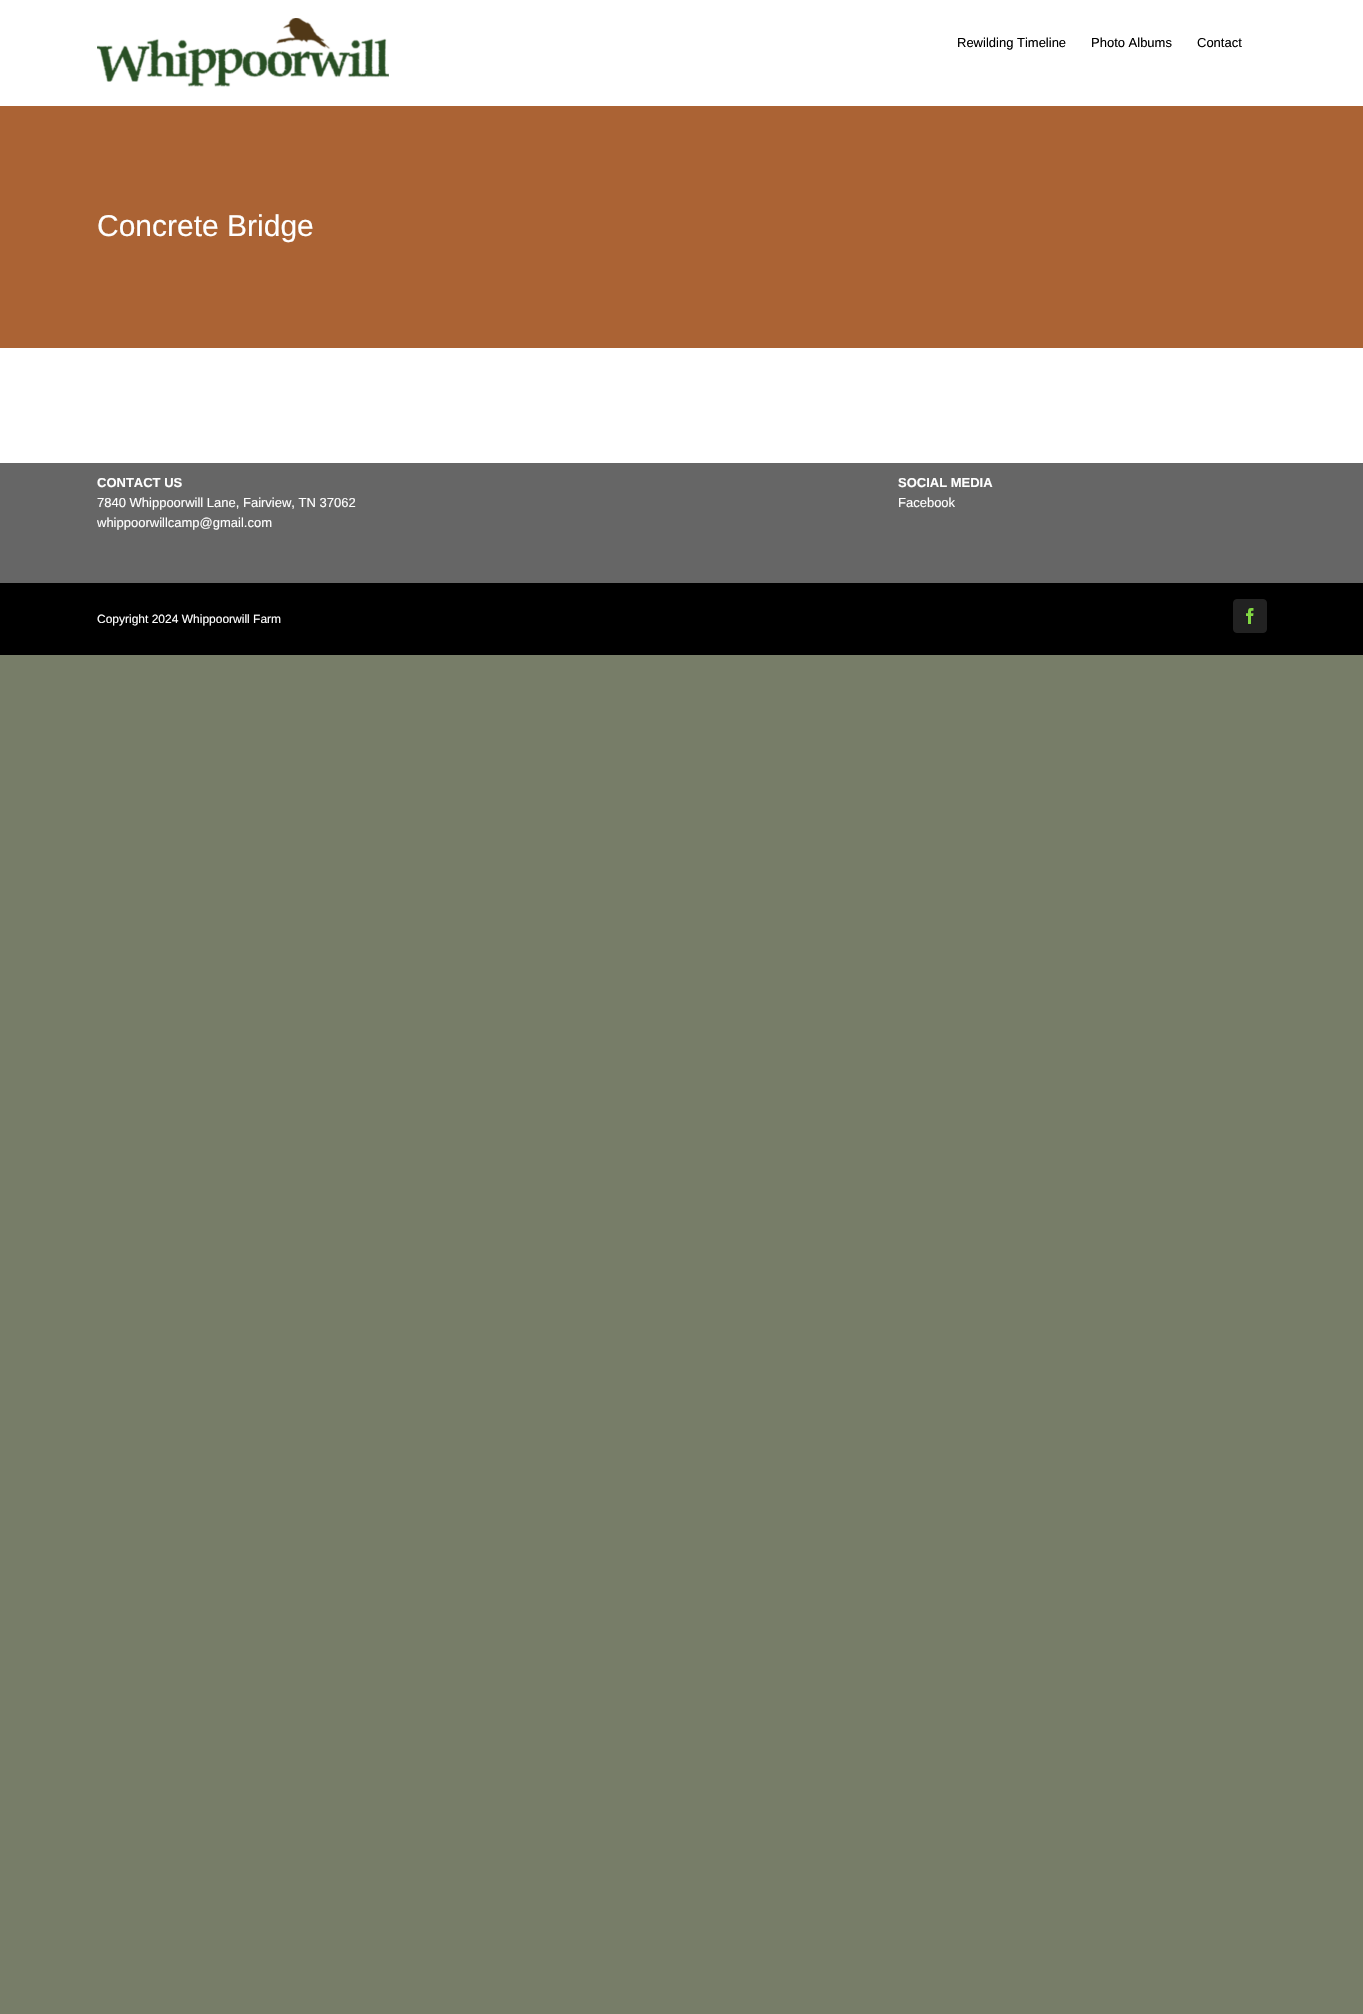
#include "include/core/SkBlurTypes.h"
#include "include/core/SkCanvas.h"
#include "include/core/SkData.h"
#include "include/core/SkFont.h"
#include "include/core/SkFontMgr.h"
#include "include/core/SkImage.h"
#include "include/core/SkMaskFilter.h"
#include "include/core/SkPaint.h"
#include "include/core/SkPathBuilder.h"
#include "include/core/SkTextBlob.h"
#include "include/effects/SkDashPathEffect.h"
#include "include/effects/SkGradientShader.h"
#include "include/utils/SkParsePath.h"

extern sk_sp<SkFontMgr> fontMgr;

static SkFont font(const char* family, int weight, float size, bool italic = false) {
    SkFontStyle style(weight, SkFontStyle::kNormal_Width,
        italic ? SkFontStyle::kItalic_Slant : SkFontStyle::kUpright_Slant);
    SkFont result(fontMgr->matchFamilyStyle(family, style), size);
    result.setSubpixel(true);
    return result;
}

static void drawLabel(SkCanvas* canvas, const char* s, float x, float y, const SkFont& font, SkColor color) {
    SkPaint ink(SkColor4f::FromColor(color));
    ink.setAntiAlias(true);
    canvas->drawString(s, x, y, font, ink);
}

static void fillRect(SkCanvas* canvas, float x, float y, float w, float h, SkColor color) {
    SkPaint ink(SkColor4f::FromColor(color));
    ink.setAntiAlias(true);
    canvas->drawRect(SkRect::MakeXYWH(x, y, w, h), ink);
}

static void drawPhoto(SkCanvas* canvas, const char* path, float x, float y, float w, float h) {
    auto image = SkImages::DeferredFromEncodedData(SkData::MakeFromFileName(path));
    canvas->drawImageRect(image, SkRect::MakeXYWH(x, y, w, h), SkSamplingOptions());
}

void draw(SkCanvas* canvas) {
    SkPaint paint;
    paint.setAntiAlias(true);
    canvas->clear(0xFF777D68);
    fillRect(canvas, 0, 0, 1363, 106, 0xFFFFFFFF);
    drawPhoto(canvas, "assets/img1.png", 97, 18, 292, 69);
    SkFont font1 = font("Liberation Sans", 400, 13);
    drawLabel(canvas, "Rewilding Timeline", 957, 47, font1, 0xFF000000);
    drawLabel(canvas, "Photo Albums", 1091, 47, font1, 0xFF000000);
    drawLabel(canvas, "Contact", 1197, 47, font1, 0xFF000000);
    fillRect(canvas, 0, 106, 1363, 242, 0xFFAB6334);
    SkFont font2 = font("Liberation Sans", 400, 30);
    drawLabel(canvas, "Concrete Bridge", 97, 236, font2, 0xFFFFFFFF);
    fillRect(canvas, 0, 348, 1363, 115, 0xFFFFFFFF);
    fillRect(canvas, 0, 463, 1363, 120, 0xFF666666);
    SkFont font3 = font("Liberation Sans", 700, 13);
    drawLabel(canvas, "CONTACT US", 97, 487, font3, 0xFFFFFFFF);
    drawLabel(canvas, "7840 Whippoorwill Lane, Fairview, TN 37062", 97, 507, font1, 0xFFFFFFFF);
    drawLabel(canvas, "whippoorwillcamp@gmail.com", 97, 527, font1, 0xFFFFFFFF);
    drawLabel(canvas, "SOCIAL MEDIA", 898, 487, font3, 0xFFFFFFFF);
    drawLabel(canvas, "Facebook", 898, 507, font1, 0xFFFFFFFF);
    fillRect(canvas, 0, 583, 1363, 72, 0xFF000000);
    SkFont font4 = font("Liberation Sans", 400, 12);
    drawLabel(canvas, "Copyright 2024 Whippoorwill Farm", 97, 623, font4, 0xFFFFFFFF);
    paint.setColor(0xFF222222);
    canvas->drawRoundRect(SkRect::MakeXYWH(1233.5f, 599.5f, 33, 33), 3.5f, 3.5f, paint);
    paint.setStroke(true);
    paint.setStrokeWidth(1);
    canvas->drawRoundRect(SkRect::MakeXYWH(1233.5f, 599.5f, 33, 33), 3.5f, 3.5f, paint);
    drawPhoto(canvas, "assets/img2.png", 1246, 608, 8, 16);
}
